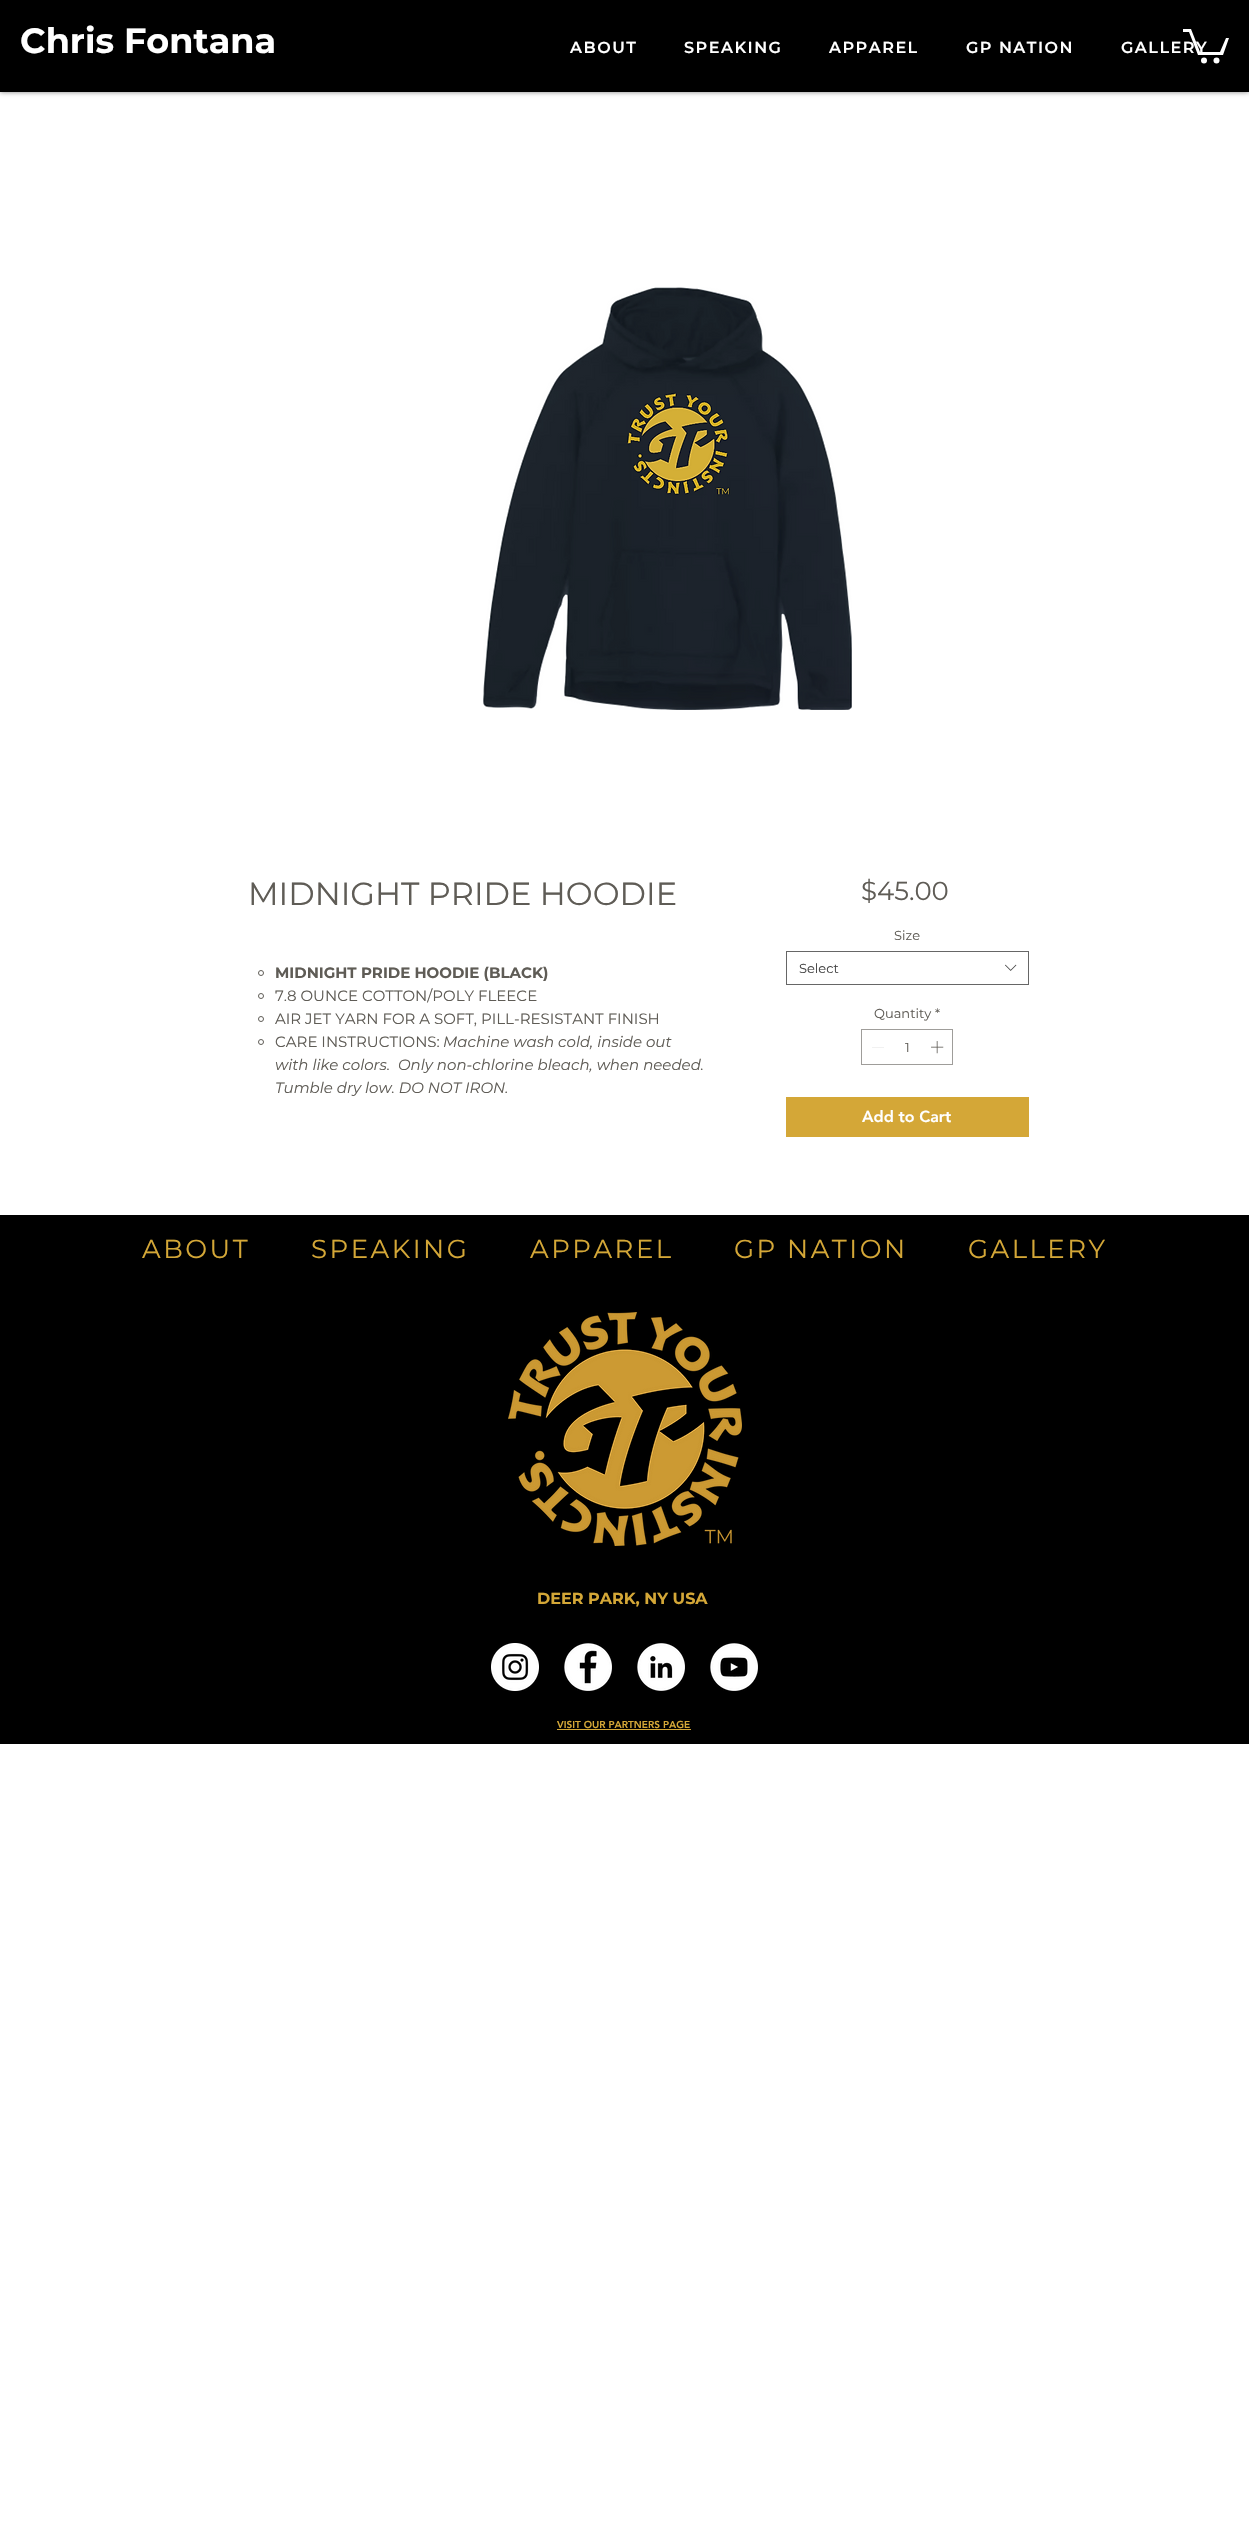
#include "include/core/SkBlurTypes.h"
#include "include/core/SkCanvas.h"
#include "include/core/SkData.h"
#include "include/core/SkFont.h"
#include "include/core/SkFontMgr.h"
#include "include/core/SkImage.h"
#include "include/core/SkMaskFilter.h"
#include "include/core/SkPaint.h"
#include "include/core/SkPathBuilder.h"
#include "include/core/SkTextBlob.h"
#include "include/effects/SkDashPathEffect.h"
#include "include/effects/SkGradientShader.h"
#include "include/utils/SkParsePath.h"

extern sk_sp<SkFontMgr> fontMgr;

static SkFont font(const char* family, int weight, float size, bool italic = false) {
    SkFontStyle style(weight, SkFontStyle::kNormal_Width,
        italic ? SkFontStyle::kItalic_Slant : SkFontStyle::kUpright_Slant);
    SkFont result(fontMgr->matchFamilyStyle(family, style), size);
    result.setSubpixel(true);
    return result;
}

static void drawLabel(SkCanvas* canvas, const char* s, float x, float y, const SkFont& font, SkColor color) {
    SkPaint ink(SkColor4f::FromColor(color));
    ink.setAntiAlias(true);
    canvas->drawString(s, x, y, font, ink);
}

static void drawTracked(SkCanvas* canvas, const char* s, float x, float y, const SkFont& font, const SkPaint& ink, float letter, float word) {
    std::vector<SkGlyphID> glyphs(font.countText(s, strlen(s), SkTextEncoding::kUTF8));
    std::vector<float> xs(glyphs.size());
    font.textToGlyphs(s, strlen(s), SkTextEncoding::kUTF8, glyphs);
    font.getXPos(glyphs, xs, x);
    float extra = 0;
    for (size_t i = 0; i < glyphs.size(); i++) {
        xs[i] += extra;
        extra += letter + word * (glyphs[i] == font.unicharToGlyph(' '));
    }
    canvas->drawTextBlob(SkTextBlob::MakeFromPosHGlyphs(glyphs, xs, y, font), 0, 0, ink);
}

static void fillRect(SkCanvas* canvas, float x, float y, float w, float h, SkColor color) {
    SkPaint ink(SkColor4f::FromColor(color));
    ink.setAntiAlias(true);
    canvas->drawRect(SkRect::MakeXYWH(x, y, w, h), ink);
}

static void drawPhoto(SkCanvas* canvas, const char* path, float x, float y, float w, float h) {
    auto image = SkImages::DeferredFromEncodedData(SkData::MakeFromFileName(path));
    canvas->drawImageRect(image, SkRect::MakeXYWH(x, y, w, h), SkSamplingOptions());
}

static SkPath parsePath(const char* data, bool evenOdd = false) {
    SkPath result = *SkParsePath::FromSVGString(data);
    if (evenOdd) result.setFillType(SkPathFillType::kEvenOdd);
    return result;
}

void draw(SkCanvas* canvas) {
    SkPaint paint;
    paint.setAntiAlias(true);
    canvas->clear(0xFFFFFFFF);
    paint.setColor(0x80000000);
    paint.setMaskFilter(SkMaskFilter::MakeBlur(kNormal_SkBlurStyle, 2.5f));
    canvas->drawRect(SkRect::MakeXYWH(0, 0, 1249, 92), paint);
    paint.setMaskFilter(nullptr);
    fillRect(canvas, 0, 0, 1249, 92, 0xFF000000);
    SkFont font1 = font("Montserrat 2", 700, 35);
    drawLabel(canvas, "Chris Fontana", 20, 53, font1, 0xFFFFFFFF);
    paint.setColor(0xFFFFFFFF);
    canvas->drawPath(parsePath("M1229 38L1223 55H1198L1189 32H1183V29H1191L1200 52H1220L1226 38"), paint);
    canvas->drawCircle(1216.5f, 60.5f, 3, paint);
    canvas->drawCircle(1204, 60.5f, 3, paint);
    SkFont font2 = font("Montserrat", 600, 16);
    drawTracked(canvas, "ABOUT", 570, 53, font2, paint, 1.5f, 0);
    drawTracked(canvas, "SPEAKING", 684, 53, font2, paint, 1.5f, 0);
    drawTracked(canvas, "APPAREL", 829, 53, font2, paint, 1.5f, 0);
    drawTracked(canvas, "GP NATION", 966, 53, font2, paint, 1.5f, 0);
    drawTracked(canvas, "GALLERY", 1121, 53, font2, paint, 1.5f, 0);
    drawPhoto(canvas, "assets/img1.png", 483, 287, 369, 423);
    SkFont font3 = font("Montserrat", 400, 32);
    drawLabel(canvas, "MIDNIGHT PRIDE HOODIE", 248, 905, font3, 0xFF5F5C56);
    paint.setStroke(true);
    paint.setStrokeWidth(1);
    paint.setColor(0xFF5F5C56);
    canvas->drawCircle(261, 973, 2.5f, paint);
    SkFont font4 = font("Montserrat", 700, 15);
    drawLabel(canvas, "MIDNIGHT PRIDE HOODIE (BLACK)", 275, 978, font4, 0xFF5F5C56);
    canvas->drawCircle(261, 996, 2.5f, paint);
    SkFont font5 = font("Montserrat", 400, 15);
    drawLabel(canvas, "7.8 OUNCE COTTON/POLY FLEECE", 275, 1001, font5, 0xFF5F5C56);
    canvas->drawCircle(261, 1019, 2.5f, paint);
    drawLabel(canvas, "AIR JET YARN FOR A SOFT, PILL-RESISTANT FINISH", 275, 1024, font5, 0xFF5F5C56);
    canvas->drawCircle(261, 1042, 2.5f, paint);
    drawLabel(canvas, "CARE INSTRUCTIONS:", 275, 1047, font5, 0xFF5F5C56);
    SkFont font6 = font("Montserrat", 400, 15, true);
    drawLabel(canvas, "Machine wash cold, inside out", 443, 1047, font6, 0xFF5F5C56);
    drawLabel(canvas, "with like colors.  Only non-chlorine bleach, when needed.", 275, 1070, font6, 0xFF5F5C56);
    drawLabel(canvas, "Tumble dry low. DO NOT IRON.", 275, 1093, font6, 0xFF5F5C56);
    SkFont font7 = font("Montserrat", 400, 26);
    drawLabel(canvas, "$45.00", 861, 900, font7, 0xFF5F5C56);
    SkFont font8 = font("Montserrat", 400, 13);
    drawLabel(canvas, "Size", 894, 940, font8, 0xFF5F5C56);
    paint.setColor(0xFF666666);
    canvas->drawRect(SkRect::MakeXYWH(786.5f, 951.5f, 242, 33), paint);
    drawLabel(canvas, "Select", 799, 973, font8, 0xFF444444);
    drawPhoto(canvas, "assets/img2.png", 1005, 964, 12, 7);
    drawLabel(canvas, "Quantity", 874, 1018, font8, 0xFF5F5C56);
    drawLabel(canvas, "*", 935, 1018, font8, 0xFF5F5C56);
    paint.setColor(0xFF9F9D9A);
    canvas->drawRect(SkRect::MakeXYWH(861.5f, 1029.5f, 91, 35), paint);
    paint.setStroke(false);
    paint.setColor(0xFFE3E3E3);
    canvas->drawPath(parsePath("M884 1047V1047.5H872V1047Z", true), paint);
    drawLabel(canvas, "1", 905, 1052, font8, 0xFF5F5C56);
    drawPhoto(canvas, "assets/img3.png", 931, 1041, 13, 13);
    fillRect(canvas, 786, 1097, 243, 40, 0xFFD4A737);
    SkFont font9 = font("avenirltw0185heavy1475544", 900, 16);
    drawLabel(canvas, "Add to Cart", 862, 1122, font9, 0xFFFFFFFF);
    fillRect(canvas, 0, 1215, 1249, 529, 0xFF000000);
    paint.setColor(0xFFD4A737);
    drawTracked(canvas, "ABOUT", 142, 1258, font7, paint, 2.5f, 0);
    drawTracked(canvas, "SPEAKING", 311, 1258, font7, paint, 2.5f, 0);
    drawTracked(canvas, "APPAREL", 530, 1258, font7, paint, 2.5f, 0);
    drawTracked(canvas, "GP NATION", 734, 1258, font7, paint, 2.5f, 0);
    drawTracked(canvas, "GALLERY", 968, 1258, font7, paint, 2.5f, 0);
    drawPhoto(canvas, "assets/img4.png", 508, 1312, 234, 234);
    SkFont font10 = font("Montserrat", 700, 16);
    drawLabel(canvas, "DEER PARK, NY USA", 537, 1604, font10, 0xFFD4A737);
    drawPhoto(canvas, "assets/img5.png", 491, 1643, 48, 48);
    drawPhoto(canvas, "assets/img6.png", 564, 1643, 48, 48);
    drawPhoto(canvas, "assets/img7.png", 637, 1643, 48, 48);
    drawPhoto(canvas, "assets/img8.png", 710, 1643, 48, 48);
    SkFont font11 = font("avenirltw0185heavy1475544", 900, 10);
    drawLabel(canvas, "VISIT OUR PARTNERS PAGE", 557, 1728, font11, 0xFFD4A737);
    fillRect(canvas, 557, 1729, 134, 1, 0xFFD4A737);
}
